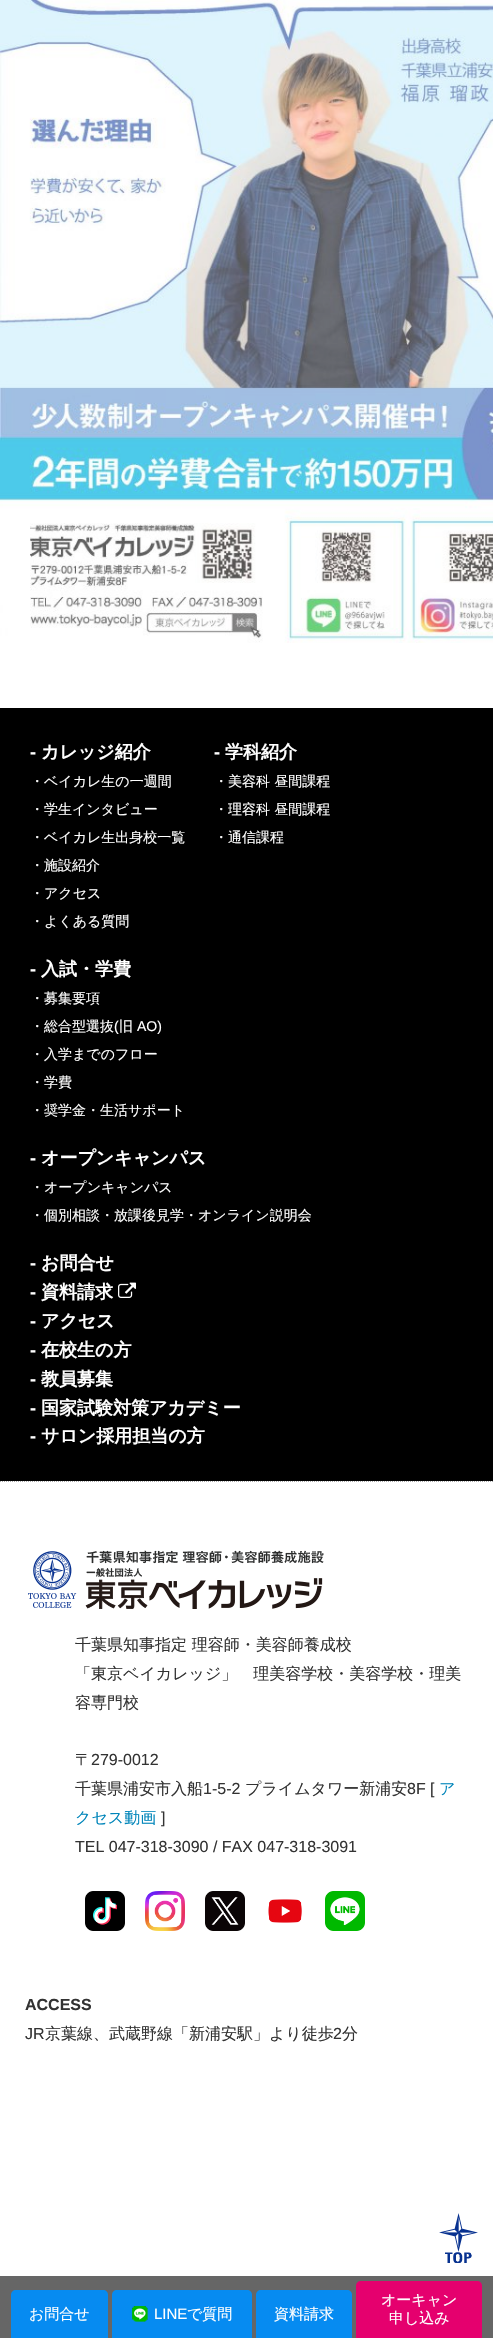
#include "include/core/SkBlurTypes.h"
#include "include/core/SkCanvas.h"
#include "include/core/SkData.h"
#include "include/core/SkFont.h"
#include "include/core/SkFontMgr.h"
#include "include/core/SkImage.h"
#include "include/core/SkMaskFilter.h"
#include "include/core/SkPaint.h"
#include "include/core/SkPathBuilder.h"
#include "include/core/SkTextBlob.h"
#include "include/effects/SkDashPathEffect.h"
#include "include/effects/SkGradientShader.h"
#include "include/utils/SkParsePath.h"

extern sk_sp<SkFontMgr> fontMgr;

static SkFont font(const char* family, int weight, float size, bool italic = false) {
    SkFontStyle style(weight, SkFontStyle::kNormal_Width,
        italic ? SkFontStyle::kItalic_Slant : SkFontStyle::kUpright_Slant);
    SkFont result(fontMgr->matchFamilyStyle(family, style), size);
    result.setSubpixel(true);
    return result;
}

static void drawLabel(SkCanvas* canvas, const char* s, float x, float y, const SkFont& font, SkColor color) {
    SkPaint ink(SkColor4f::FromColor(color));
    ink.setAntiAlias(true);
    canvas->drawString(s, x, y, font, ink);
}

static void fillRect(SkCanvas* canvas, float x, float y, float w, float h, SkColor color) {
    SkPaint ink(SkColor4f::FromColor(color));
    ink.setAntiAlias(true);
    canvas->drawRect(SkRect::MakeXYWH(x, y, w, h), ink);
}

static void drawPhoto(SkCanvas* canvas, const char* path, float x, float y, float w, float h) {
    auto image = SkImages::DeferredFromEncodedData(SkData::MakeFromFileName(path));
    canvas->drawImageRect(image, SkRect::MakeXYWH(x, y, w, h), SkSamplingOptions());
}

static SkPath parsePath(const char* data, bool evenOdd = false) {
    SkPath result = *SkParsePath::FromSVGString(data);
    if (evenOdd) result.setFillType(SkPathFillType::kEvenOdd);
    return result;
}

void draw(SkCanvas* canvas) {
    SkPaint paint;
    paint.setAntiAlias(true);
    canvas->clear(0xFFFFFFFF);
    drawPhoto(canvas, "assets/img1.png", 0, 0, 493, 643);
    fillRect(canvas, 0, 708, 493, 773, 0xFF000000);
    SkFont font1 = font("Liberation Sans", 700, 18);
    drawLabel(canvas, "-", 30, 758, font1, 0xFFFFFFFF);
    SkFont font2 = font("WenQuanYi Zen Hei", 700, 18);
    drawLabel(canvas, "カレッジ紹介", 41, 758, font2, 0xFFFFFFFF);
    SkFont font3 = font("WenQuanYi Zen Hei", 500, 14);
    drawLabel(canvas, "・ベイカレ生の一週間", 30, 786, font3, 0xFFFFFFFF);
    drawLabel(canvas, "・学生インタビュー", 30, 814, font3, 0xFFFFFFFF);
    drawLabel(canvas, "・ベイカレ生出身校一覧", 30, 842, font3, 0xFFFFFFFF);
    drawLabel(canvas, "・施設紹介", 30, 870, font3, 0xFFFFFFFF);
    drawLabel(canvas, "・アクセス", 30, 898, font3, 0xFFFFFFFF);
    drawLabel(canvas, "・よくある質問", 30, 926, font3, 0xFFFFFFFF);
    drawLabel(canvas, "-", 214, 758, font1, 0xFFFFFFFF);
    drawLabel(canvas, "学科紹介", 225, 758, font2, 0xFFFFFFFF);
    drawLabel(canvas, "・美容科 昼間課程", 214, 786, font3, 0xFFFFFFFF);
    drawLabel(canvas, "・理容科 昼間課程", 214, 814, font3, 0xFFFFFFFF);
    drawLabel(canvas, "・通信課程", 214, 842, font3, 0xFFFFFFFF);
    drawLabel(canvas, "-", 30, 975, font1, 0xFFFFFFFF);
    drawLabel(canvas, "入試・学費", 41, 975, font2, 0xFFFFFFFF);
    drawLabel(canvas, "・募集要項", 30, 1003, font3, 0xFFFFFFFF);
    drawLabel(canvas, "・総合型選抜", 30, 1031, font3, 0xFFFFFFFF);
    SkFont font4 = font("Liberation Sans", 400, 14);
    drawLabel(canvas, "(", 114, 1031, font4, 0xFFFFFFFF);
    drawLabel(canvas, "旧", 119, 1031, font3, 0xFFFFFFFF);
    drawLabel(canvas, "AO)", 137, 1031, font4, 0xFFFFFFFF);
    drawLabel(canvas, "・入学までのフロー", 30, 1059, font3, 0xFFFFFFFF);
    drawLabel(canvas, "・学費", 30, 1087, font3, 0xFFFFFFFF);
    drawLabel(canvas, "・奨学金・生活サポート", 30, 1115, font3, 0xFFFFFFFF);
    drawLabel(canvas, "-", 30, 1164, font1, 0xFFFFFFFF);
    drawLabel(canvas, "オープンキャンパス", 41, 1164, font2, 0xFFFFFFFF);
    drawLabel(canvas, "・オープンキャンパス", 30, 1192, font3, 0xFFFFFFFF);
    drawLabel(canvas, "・個別相談・放課後見学・オンライン説明会", 30, 1220, font3, 0xFFFFFFFF);
    drawLabel(canvas, "-", 30, 1269, font1, 0xFFFFFFFF);
    drawLabel(canvas, "お問合せ", 41, 1269, font2, 0xFFFFFFFF);
    drawLabel(canvas, "-", 30, 1298, font1, 0xFFFFFFFF);
    drawLabel(canvas, "資料請求", 41, 1298, font2, 0xFFFFFFFF);
    drawPhoto(canvas, "assets/img2.png", 118, 1282, 18, 16);
    drawLabel(canvas, "-", 30, 1327, font1, 0xFFFFFFFF);
    drawLabel(canvas, "アクセス", 41, 1327, font2, 0xFFFFFFFF);
    drawLabel(canvas, "-", 30, 1356, font1, 0xFFFFFFFF);
    drawLabel(canvas, "在校生の方", 41, 1356, font2, 0xFFFFFFFF);
    drawLabel(canvas, "-", 30, 1385, font1, 0xFFFFFFFF);
    drawLabel(canvas, "教員募集", 41, 1385, font2, 0xFFFFFFFF);
    drawLabel(canvas, "-", 30, 1414, font1, 0xFFFFFFFF);
    drawLabel(canvas, "国家試験対策アカデミー", 41, 1414, font2, 0xFFFFFFFF);
    drawLabel(canvas, "-", 30, 1442, font1, 0xFFFFFFFF);
    drawLabel(canvas, "サロン採用担当の方", 41, 1442, font2, 0xFFFFFFFF);
    paint.setStroke(true);
    paint.setStrokeWidth(1);
    paint.setColor(0xFFAAAAAA);
    paint.setPathEffect(SkDashPathEffect::Make({{1, 1}}, 0));
    canvas->drawPath(parsePath("M0 1481.5H493"), paint);
    paint.setPathEffect(nullptr);
    drawPhoto(canvas, "assets/img3.png", 28, 1550, 296, 59);
    SkFont font5 = font("WenQuanYi Zen Hei", 500, 16);
    drawLabel(canvas, "千葉県知事指定 理容師・美容師養成校", 75, 1650, font5, 0xFF333333);
    drawLabel(canvas, "「東京ベイカレッジ」　理美容学校・美容学校・理美", 75, 1679, font5, 0xFF333333);
    drawLabel(canvas, "容専門校", 75, 1708, font5, 0xFF333333);
    drawLabel(canvas, "〒", 75, 1765, font5, 0xFF333333);
    SkFont font6 = font("Liberation Sans", 400, 16);
    drawLabel(canvas, "279-0012", 91, 1765, font6, 0xFF333333);
    drawLabel(canvas, "千葉県浦安市入船", 75, 1794, font5, 0xFF333333);
    drawLabel(canvas, "1-5-2", 203, 1794, font6, 0xFF333333);
    drawLabel(canvas, "プライムタワー新浦安", 245, 1794, font5, 0xFF333333);
    drawLabel(canvas, "8F [", 407, 1794, font6, 0xFF333333);
    drawLabel(canvas, "ア", 439, 1794, font5, 0xFF0085BA);
    drawLabel(canvas, "クセス動画", 75, 1823, font5, 0xFF0085BA);
    drawLabel(canvas, "]", 161, 1823, font6, 0xFF333333);
    drawLabel(canvas, "TEL 047-318-3090 / FAX 047-318-3091", 75, 1852, font6, 0xFF333333);
    drawPhoto(canvas, "assets/img4.png", 85, 1891, 40, 40);
    drawPhoto(canvas, "assets/img5.png", 145, 1891, 40, 40);
    drawPhoto(canvas, "assets/img6.png", 205, 1891, 40, 40);
    drawPhoto(canvas, "assets/img7.png", 268, 1899, 34, 24);
    drawPhoto(canvas, "assets/img8.png", 325, 1891, 40, 40);
    SkFont font7 = font("Liberation Sans", 700, 16);
    drawLabel(canvas, "ACCESS", 25, 2010, font7, 0xFF333333);
    drawLabel(canvas, "JR", 25, 2039, font6, 0xFF333333);
    drawLabel(canvas, "京葉線、武蔵野線「新浦安駅」より徒歩", 45, 2039, font5, 0xFF333333);
    drawLabel(canvas, "2", 333, 2039, font6, 0xFF333333);
    drawLabel(canvas, "分", 342, 2039, font5, 0xFF333333);
    fillRect(canvas, 0, 2276, 493, 62, 0xFF666666);
    paint.setStroke(false);
    paint.setColor(0xFF068BF1);
    canvas->drawPath(parsePath("M16 2290H103C106 2290 108 2292 108 2295V2338H11V2295C11 2292 13 2290 16 2290Z"), paint);
    SkFont font8 = font("WenQuanYi Zen Hei", 500, 15);
    drawLabel(canvas, "お問合せ", 29, 2319, font8, 0xFFFFFFFF);
    canvas->drawPath(parsePath("M117 2290H247C250 2290 252 2292 252 2295V2338H112V2295C112 2292 114 2290 117 2290Z"), paint);
    drawPhoto(canvas, "assets/img9.png", 132, 2306, 16, 16);
    SkFont font9 = font("Liberation Sans", 400, 15);
    drawLabel(canvas, "LINE", 154, 2319, font9, 0xFFFFFFFF);
    drawLabel(canvas, "で質問", 187, 2319, font8, 0xFFFFFFFF);
    canvas->drawPath(parsePath("M261 2290H347C350 2290 352 2292 352 2295V2338H256V2295C256 2292 258 2290 261 2290Z"), paint);
    drawLabel(canvas, "資料請求", 274, 2319, font8, 0xFFFFFFFF);
    paint.setColor(0xFFE5006E);
    canvas->drawPath(parsePath("M361 2281H477C480 2281 482 2283 482 2286V2338H356V2286C356 2283 358 2281 361 2281Z"), paint);
    drawLabel(canvas, "オーキャン", 381, 2305, font8, 0xFFFFFFFF);
    drawLabel(canvas, "申し込み", 389, 2323, font8, 0xFFFFFFFF);
    drawPhoto(canvas, "assets/img10.png", 439, 2213, 39, 50);
}
